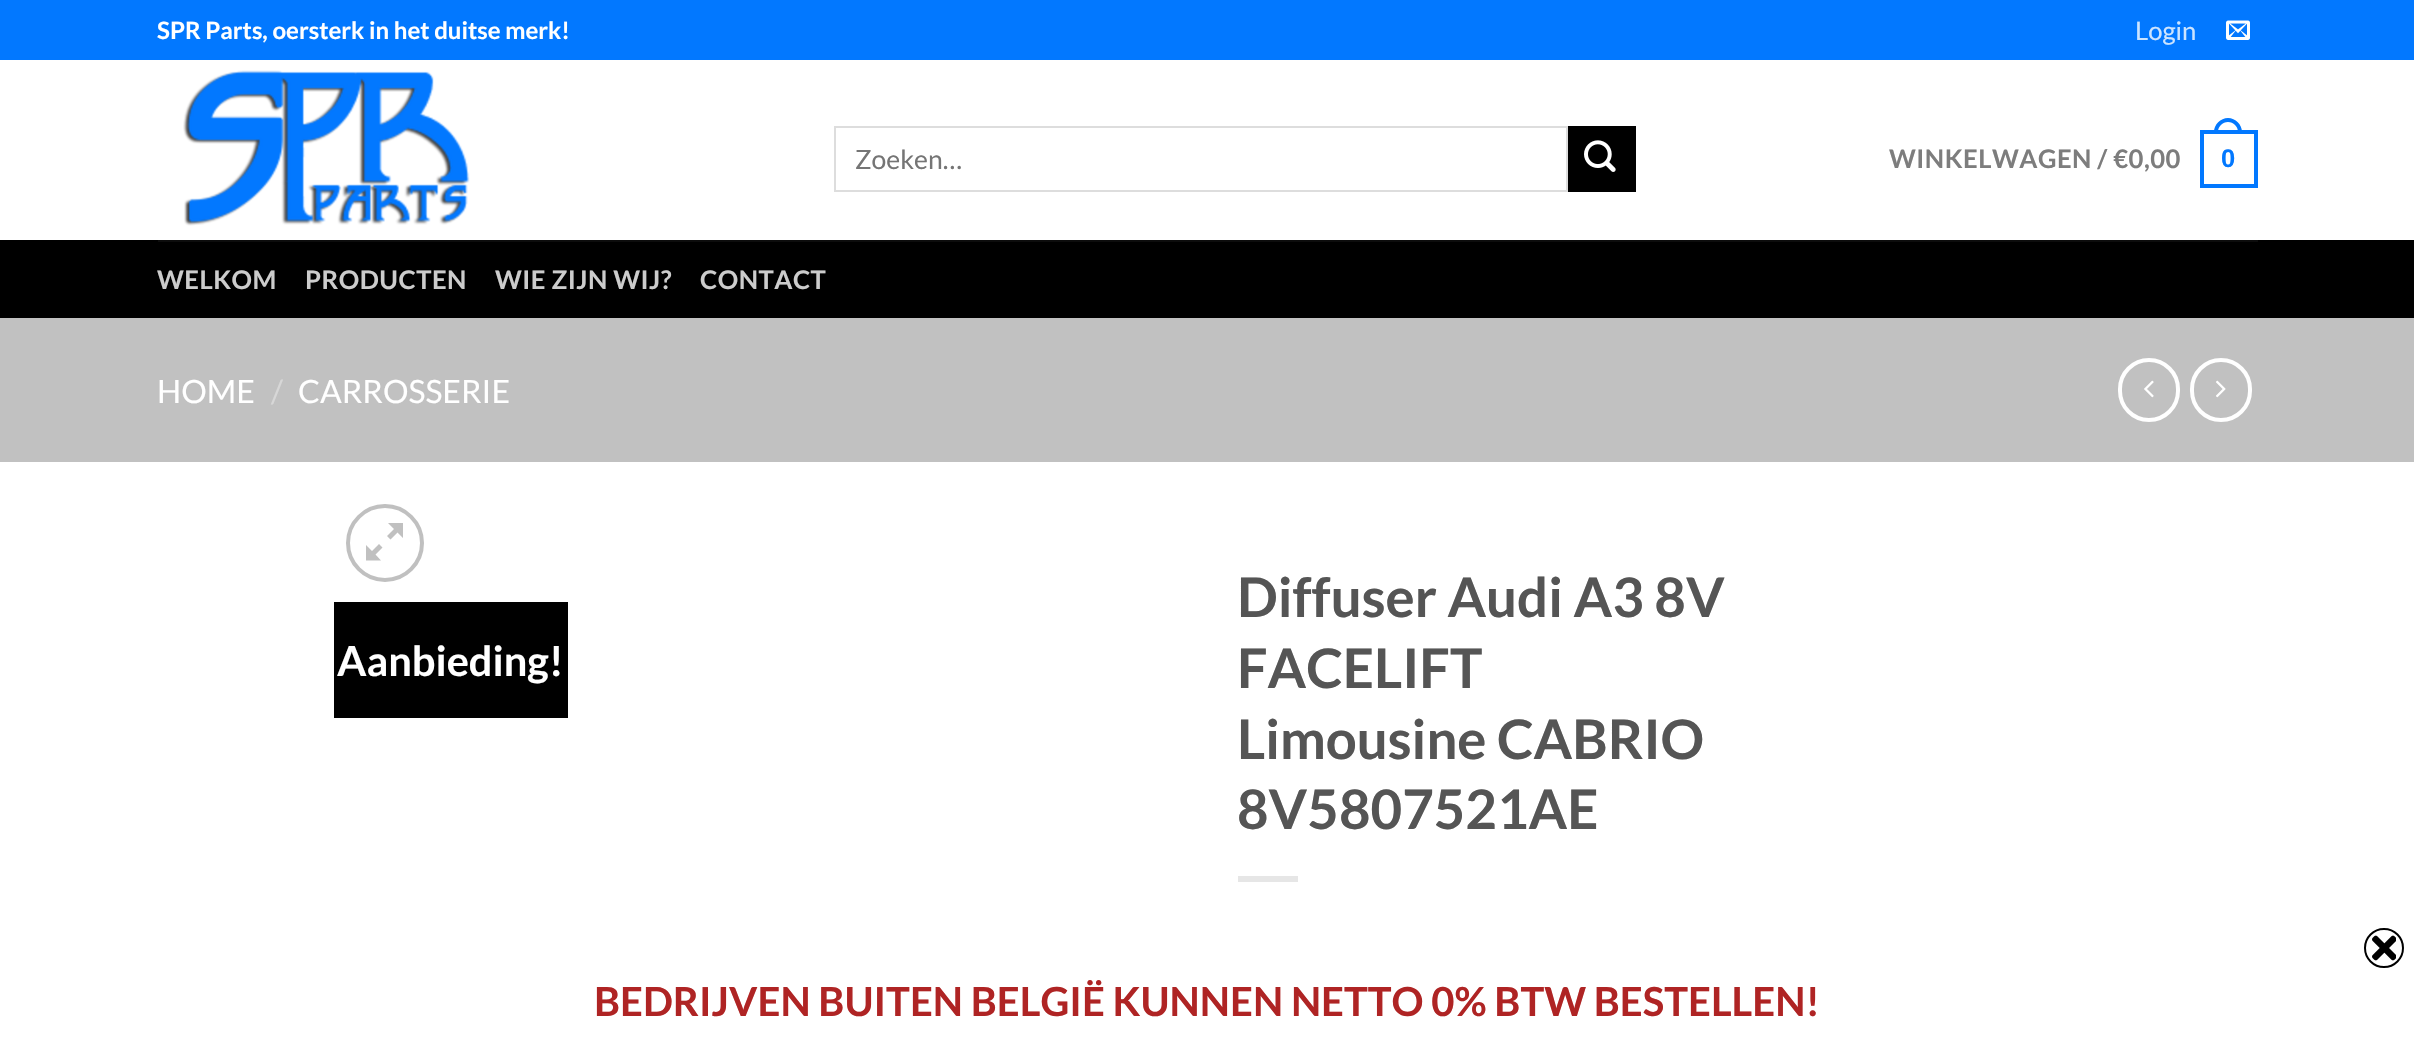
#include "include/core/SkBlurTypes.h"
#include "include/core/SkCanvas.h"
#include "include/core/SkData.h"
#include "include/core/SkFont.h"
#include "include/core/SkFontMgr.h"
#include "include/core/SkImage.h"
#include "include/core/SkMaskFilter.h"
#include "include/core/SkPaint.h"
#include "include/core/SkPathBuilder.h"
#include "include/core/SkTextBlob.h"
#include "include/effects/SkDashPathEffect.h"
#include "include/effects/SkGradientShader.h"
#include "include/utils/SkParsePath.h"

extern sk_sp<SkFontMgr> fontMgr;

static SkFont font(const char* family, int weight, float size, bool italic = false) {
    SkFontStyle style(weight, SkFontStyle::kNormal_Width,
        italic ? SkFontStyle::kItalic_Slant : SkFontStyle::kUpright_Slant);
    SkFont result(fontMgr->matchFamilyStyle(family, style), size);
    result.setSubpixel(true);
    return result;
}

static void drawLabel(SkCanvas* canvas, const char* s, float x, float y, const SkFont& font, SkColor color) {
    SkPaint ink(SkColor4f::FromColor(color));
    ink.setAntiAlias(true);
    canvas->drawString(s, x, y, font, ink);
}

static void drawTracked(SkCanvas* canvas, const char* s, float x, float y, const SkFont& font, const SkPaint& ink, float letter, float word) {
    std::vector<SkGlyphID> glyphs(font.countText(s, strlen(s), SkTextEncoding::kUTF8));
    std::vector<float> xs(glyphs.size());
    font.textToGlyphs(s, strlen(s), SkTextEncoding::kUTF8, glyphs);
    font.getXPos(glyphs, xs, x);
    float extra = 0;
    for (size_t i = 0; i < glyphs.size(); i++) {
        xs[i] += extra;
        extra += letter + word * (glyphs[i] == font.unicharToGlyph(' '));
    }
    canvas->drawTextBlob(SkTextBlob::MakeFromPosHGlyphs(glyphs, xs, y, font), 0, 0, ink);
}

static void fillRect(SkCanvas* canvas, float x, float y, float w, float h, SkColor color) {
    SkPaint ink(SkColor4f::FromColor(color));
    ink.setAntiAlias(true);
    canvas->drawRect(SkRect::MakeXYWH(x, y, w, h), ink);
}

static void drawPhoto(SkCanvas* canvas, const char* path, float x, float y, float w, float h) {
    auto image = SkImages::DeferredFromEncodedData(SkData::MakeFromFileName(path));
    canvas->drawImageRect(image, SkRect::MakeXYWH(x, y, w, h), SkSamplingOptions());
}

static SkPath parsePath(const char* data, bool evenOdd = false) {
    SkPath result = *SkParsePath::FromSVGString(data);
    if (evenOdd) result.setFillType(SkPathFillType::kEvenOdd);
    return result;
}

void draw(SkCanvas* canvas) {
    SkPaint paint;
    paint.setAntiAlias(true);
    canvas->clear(0xFFFFFFFF);
    fillRect(canvas, 0, 0, 2414, 60, 0xFF0278FF);
    SkFont font1 = font("Lato", 700, 24);
    drawLabel(canvas, "SPR Parts, oersterk in het duitse merk!", 157, 39, font1, 0xFFFFFFFF);
    SkFont font2 = font("Lato", 400, 25.6f);
    drawLabel(canvas, "Login", 2135, 40, font2, 0xFFCCE4FF);
    drawPhoto(canvas, "assets/img1.png", 2226, 20, 24, 20);
    drawPhoto(canvas, "assets/img2.png", 183, 70, 287, 156);
    paint.setStroke(true);
    paint.setStrokeWidth(2);
    paint.setColor(0xFFDDDDDD);
    canvas->drawRect(SkRect::MakeXYWH(835, 127, 732, 64), paint);
    SkFont font3 = font("Lato", 400, 26.5f);
    drawLabel(canvas, "Zoeken…", 855, 169, font3, 0xFF757575);
    fillRect(canvas, 1568, 126, 68, 66, 0xFF000000);
    drawPhoto(canvas, "assets/img3.png", 1584, 140, 32, 32);
    SkFont font4 = font("Lato", 700, 25.6f);
    paint.setStroke(false);
    paint.setColor(0xFF7D7D7D);
    drawTracked(canvas, "WINKELWAGEN / €0,00", 1889, 168, font4, paint, 0.5f, 0);
    paint.setStroke(true);
    paint.setStrokeWidth(4);
    paint.setColor(0xFF0278FF);
    canvas->drawRect(SkRect::MakeXYWH(2202, 132, 54, 54), paint);
    paint.setStroke(false);
    canvas->drawPath(parsePath("M2228 118C2235.5 118 2242 124.5 2242 132V134H2214V132C2214 124.5 2220.5 118 2228 118ZM2228 122C2233.5 122 2238 126.5 2238 132V134H2218V132C2218 126.5 2222.5 122 2228 122Z", true), paint);
    SkFont font5 = font("Liberation Sans", 700, 25.6f);
    drawTracked(canvas, "0", 2221, 167, font5, paint, 0.5f, 0);
    fillRect(canvas, 0, 240, 2414, 78, 0xFF000000);
    fillRect(canvas, 158, 240, 2100, 2, 0xFF0C0C0C);
    paint.setColor(0xFFCCCCCC);
    drawTracked(canvas, "WELKOM", 157, 289, font4, paint, 0.5f, 0);
    drawTracked(canvas, "PRODUCTEN", 305, 289, font4, paint, 0.5f, 0);
    drawTracked(canvas, "WIE ZIJN WIJ?", 495, 289, font4, paint, 0.5f, 0);
    drawTracked(canvas, "CONTACT", 700, 289, font4, paint, 0.5f, 0);
    fillRect(canvas, 0, 318, 2414, 144, 0xFFC1C1C1);
    SkFont font6 = font("Lato", 400, 32);
    drawLabel(canvas, "HOME", 157, 403, font6, 0xFFFFFFFF);
    drawLabel(canvas, "/", 271, 403, font6, 0xFFD7D7D7);
    drawLabel(canvas, "CARROSSERIE", 298, 403, font6, 0xFFFFFFFF);
    paint.setStroke(true);
    paint.setColor(0xFFFFFFFF);
    canvas->drawRoundRect(SkRect::MakeXYWH(2120, 360, 58, 60), 29, 29, paint);
    drawPhoto(canvas, "assets/img4.png", 2144, 380, 10, 18);
    canvas->drawRoundRect(SkRect::MakeXYWH(2192, 360, 58, 60), 29, 29, paint);
    drawPhoto(canvas, "assets/img5.png", 2216, 380, 10, 18);
    paint.setColor(0xFFC0C0C0);
    canvas->drawCircle(385, 543, 37, paint);
    paint.setStroke(false);
    canvas->drawPath(parsePath("M403 523V538L397.5 532.5L390.5 539.5L387 536L394 529L388 523ZM382.5 547.5L375.5 554.5L381 560.5H366V545L372 551L379 544Z"), paint);
    fillRect(canvas, 334, 602, 234, 116, 0xFF000000);
    SkFont font7 = font("Lato", 700, 41.5f);
    drawLabel(canvas, "Aanbieding!", 337, 676, font7, 0xFFFFFFFF);
    SkFont font8 = font("Lato", 700, 54.5f);
    drawLabel(canvas, "Diffuser Audi A3 8V", 1237, 617, font8, 0xFF555555);
    drawLabel(canvas, "FACELIFT", 1237, 688, font8, 0xFF555555);
    drawLabel(canvas, "Limousine CABRIO", 1237, 759, font8, 0xFF555555);
    drawLabel(canvas, "8V5807521AE", 1237, 829, font8, 0xFF555555);
    fillRect(canvas, 1238, 876, 60, 6, 0xFFE6E6E6);
    drawPhoto(canvas, "assets/img6.png", 2372, 935, 24, 26);
    paint.setStroke(true);
    paint.setStrokeWidth(2);
    paint.setColor(0xFF000000);
    canvas->drawCircle(2384, 948, 19, paint);
    SkFont font9 = font("Lato", 700, 40);
    drawLabel(canvas, "BEDRIJVEN BUITEN BELGIË KUNNEN NETTO 0% BTW BESTELLEN!", 594, 1016, font9, 0xFFAF2424);
}
